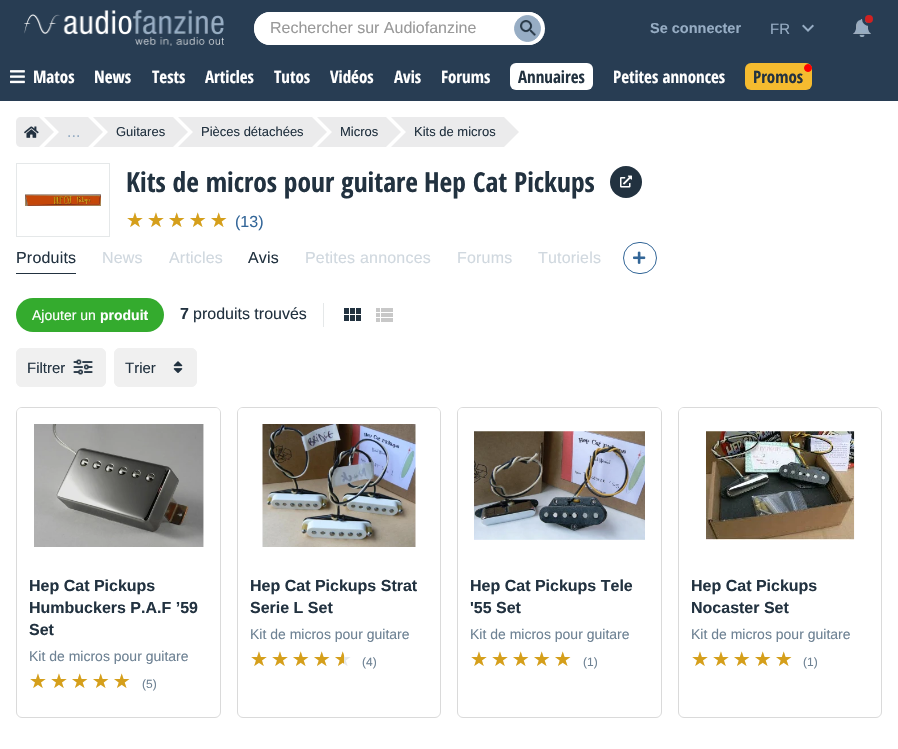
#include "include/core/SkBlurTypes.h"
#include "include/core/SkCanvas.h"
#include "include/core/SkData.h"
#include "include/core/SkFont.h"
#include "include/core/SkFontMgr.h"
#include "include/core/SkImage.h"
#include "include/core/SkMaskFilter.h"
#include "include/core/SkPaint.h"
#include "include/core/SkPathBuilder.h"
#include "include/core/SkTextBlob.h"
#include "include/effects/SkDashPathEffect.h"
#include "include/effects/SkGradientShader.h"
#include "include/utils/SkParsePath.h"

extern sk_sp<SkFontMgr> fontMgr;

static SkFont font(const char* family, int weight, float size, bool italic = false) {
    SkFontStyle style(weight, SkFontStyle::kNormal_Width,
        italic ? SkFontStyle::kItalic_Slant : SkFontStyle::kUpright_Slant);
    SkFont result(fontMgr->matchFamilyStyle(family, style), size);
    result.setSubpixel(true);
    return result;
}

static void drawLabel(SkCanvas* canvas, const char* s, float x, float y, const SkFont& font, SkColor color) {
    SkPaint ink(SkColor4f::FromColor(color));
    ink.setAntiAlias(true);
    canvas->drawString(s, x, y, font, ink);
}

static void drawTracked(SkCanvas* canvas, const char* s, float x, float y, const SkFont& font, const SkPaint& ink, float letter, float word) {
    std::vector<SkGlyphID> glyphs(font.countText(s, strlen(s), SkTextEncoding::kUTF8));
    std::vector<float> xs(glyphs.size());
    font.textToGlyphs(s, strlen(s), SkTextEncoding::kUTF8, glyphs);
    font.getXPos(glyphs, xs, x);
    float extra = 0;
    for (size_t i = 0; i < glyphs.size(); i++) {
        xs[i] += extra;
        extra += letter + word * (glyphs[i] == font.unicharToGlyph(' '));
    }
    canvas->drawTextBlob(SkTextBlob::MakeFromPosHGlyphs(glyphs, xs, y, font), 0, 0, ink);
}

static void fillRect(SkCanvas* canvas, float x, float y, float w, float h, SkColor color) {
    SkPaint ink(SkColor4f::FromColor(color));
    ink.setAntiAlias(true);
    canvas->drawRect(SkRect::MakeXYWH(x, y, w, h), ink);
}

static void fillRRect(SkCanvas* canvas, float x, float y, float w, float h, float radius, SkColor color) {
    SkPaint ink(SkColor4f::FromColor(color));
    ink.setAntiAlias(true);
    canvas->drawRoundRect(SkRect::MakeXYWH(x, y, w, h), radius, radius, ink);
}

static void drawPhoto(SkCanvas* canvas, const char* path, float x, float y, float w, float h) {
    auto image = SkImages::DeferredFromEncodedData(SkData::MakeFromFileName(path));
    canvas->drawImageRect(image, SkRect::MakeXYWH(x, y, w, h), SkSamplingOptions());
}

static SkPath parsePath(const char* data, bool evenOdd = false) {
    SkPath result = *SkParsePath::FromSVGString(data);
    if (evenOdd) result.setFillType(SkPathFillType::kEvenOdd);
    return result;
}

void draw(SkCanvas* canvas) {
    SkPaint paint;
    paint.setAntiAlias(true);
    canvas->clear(0xFFFFFFFF);
    fillRect(canvas, 0, 0, 898, 101, 0xFF283D53);
    drawPhoto(canvas, "assets/img1.png", 24, 10, 200, 36);
    fillRRect(canvas, 254, 12, 291, 33, 16.5f, 0xFFFFFFFF);
    paint.setColor(0xFFFFFFFF);
    canvas->drawPath(parsePath("M270 12H528C538 12 545 19 545 28C545 38 538 45 528 45H270C261 45 254 38 254 28C254 19 261 12 270 12ZM270 13H528C538 13 545 20 545 28C545 37 538 44 528 44H270C262 44 255 37 255 28C255 20 262 13 270 13Z", true), paint);
    SkFont font1 = font("Liberation Sans", 400, 16);
    drawLabel(canvas, "Rechercher sur Audiofanzine", 270, 33, font1, 0xFF999999);
    paint.setColor(0xFF97ADC4);
    canvas->drawCircle(527.5f, 28.5f, 13, paint);
    paint.setStroke(true);
    paint.setStrokeWidth(1);
    canvas->drawCircle(527.5f, 28.5f, 13, paint);
    drawPhoto(canvas, "assets/img2.png", 520, 20, 16, 16);
    SkFont font2 = font("Liberation Sans", 700, 14.5f);
    drawLabel(canvas, "Se connecter", 650, 33, font2, 0xFF97ADC4);
    drawPhoto(canvas, "assets/img3.png", 802, 24, 12, 8);
    SkFont font3 = font("Liberation Sans", 400, 15);
    drawLabel(canvas, "FR", 770, 34, font3, 0xFF97ADC4);
    drawPhoto(canvas, "assets/img4.png", 853, 19, 18, 18);
    paint.setStrokeWidth(3);
    paint.setColor(0xFF283D53);
    canvas->drawCircle(869, 19, 5.5f, paint);
    paint.setStroke(false);
    paint.setColor(0xFFD02121);
    canvas->drawCircle(869, 19, 4, paint);
    drawPhoto(canvas, "assets/img5.png", 10, 70, 15, 14);
    SkFont font4 = font("Open Sans Condensed", 700, 17);
    drawLabel(canvas, "Matos", 33, 83, font4, 0xFFFFFFFF);
    drawLabel(canvas, "News", 94, 83, font4, 0xFFFFFFFF);
    drawLabel(canvas, "Tests", 152, 83, font4, 0xFFFFFFFF);
    drawLabel(canvas, "Articles", 205, 83, font4, 0xFFFFFFFF);
    drawLabel(canvas, "Tutos", 274, 83, font4, 0xFFFFFFFF);
    drawLabel(canvas, "Vidéos", 330, 83, font4, 0xFFFFFFFF);
    drawLabel(canvas, "Avis", 394, 83, font4, 0xFFFFFFFF);
    drawLabel(canvas, "Forums", 441, 83, font4, 0xFFFFFFFF);
    fillRRect(canvas, 510, 63, 83, 27, 6, 0xFFFFFFFF);
    drawLabel(canvas, "Annuaires", 518, 83, font4, 0xFF223240);
    drawLabel(canvas, "Petites annonces", 613, 83, font4, 0xFFFFFFFF);
    fillRRect(canvas, 745, 63, 67, 27, 6, 0xFFF5BB2F);
    paint.setColor(0xFFFF0000);
    canvas->drawCircle(808, 68, 3.5f, paint);
    paint.setStroke(true);
    paint.setStrokeWidth(1);
    canvas->drawCircle(808, 68, 3.5f, paint);
    drawLabel(canvas, "Promos", 753, 83, font4, 0xFF223240);
    paint.setStroke(false);
    paint.setColor(0xFFEBEBEC);
    canvas->drawPath(parsePath("M21 117H39V147H21C18 147 16 145 16 142V122C16 119 18 117 21 117Z"), paint);
    drawPhoto(canvas, "assets/img6.png", 24, 126, 15, 12);
    canvas->drawPath(parsePath("M39 147V117L54 132Z"), paint);
    fillRect(canvas, 59, 117, 29, 30, 0xFFEBEBEC);
    drawLabel(canvas, "...", 67, 137, font1, 0xFF97ADC4);
    canvas->drawPath(parsePath("M44 117H59V132ZM59 147H44L59 132ZM88 147V117L103 132Z"), paint);
    fillRect(canvas, 108, 117, 65, 30, 0xFFEBEBEC);
    canvas->drawPath(parsePath("M93 117H108V132ZM108 147H93L108 132Z"), paint);
    SkFont font5 = font("Liberation Sans", 400, 13);
    drawLabel(canvas, "Guitares", 116, 136, font5, 0xFF223240);
    canvas->drawPath(parsePath("M173 147V117L188 132Z"), paint);
    fillRect(canvas, 193, 117, 119, 30, 0xFFEBEBEC);
    canvas->drawPath(parsePath("M178 117H193V132ZM193 147H178L193 132Z"), paint);
    drawLabel(canvas, "Pièces détachées", 201, 136, font5, 0xFF223240);
    canvas->drawPath(parsePath("M312 147V117L327 132Z"), paint);
    fillRect(canvas, 332, 117, 54, 30, 0xFFEBEBEC);
    canvas->drawPath(parsePath("M317 117H332V132ZM332 147H317L332 132Z"), paint);
    drawLabel(canvas, "Micros", 340, 136, font5, 0xFF223240);
    canvas->drawPath(parsePath("M386 147V117L401 132Z"), paint);
    fillRect(canvas, 406, 117, 98, 30, 0xFFEBEBEC);
    canvas->drawPath(parsePath("M391 117H406V132ZM406 147H391L406 132Z"), paint);
    drawLabel(canvas, "Kits de micros", 414, 136, font5, 0xFF223240);
    canvas->drawPath(parsePath("M504 147V117L519 132Z"), paint);
    paint.setStroke(true);
    paint.setColor(0xFFE5E8E9);
    canvas->drawRect(SkRect::MakeXYWH(16.5f, 163.5f, 93, 73), paint);
    drawPhoto(canvas, "assets/img7.png", 25, 194, 76, 12);
    SkFont font6 = font("Open Sans Condensed", 700, 27.5f);
    drawLabel(canvas, "Kits de micros pour guitare", 126, 192, font6, 0xFF223240);
    drawLabel(canvas, "Hep Cat Pickups", 424, 192, font6, 0xFF223240);
    paint.setStroke(false);
    paint.setColor(0xFF223240);
    canvas->drawCircle(626, 182, 16, paint);
    drawPhoto(canvas, "assets/img8.png", 620, 175, 12, 13);
    SkFont font7 = font("DejaVu Sans", 400, 20);
    {
        const SkColor colors[] = {0xFFD59F1B, 0xFFE5E8E9};
        const float stops[] = {0.98f, 0.98f};
        const SkPoint ends[] = {{126, 220}, {231, 220}};
        paint.setShader(SkGradientShader::MakeLinear(ends, colors, stops, 2, SkTileMode::kClamp));
        paint.setAlpha(255);
    }
    drawTracked(canvas, "★★★★★", 126, 227, font7, paint, 3, 0);
    drawLabel(canvas, "(13)", 235, 227, font1, 0xFF336699);
    fillRect(canvas, 16, 273, 60, 1, 0xFF223240);
    paint.setShader(nullptr);
    paint.setColor(0xFF223240);
    drawTracked(canvas, "Produits", 16, 263, font1, paint, 0.2f, 0);
    paint.setColor(0xFFD0D8DF);
    drawTracked(canvas, "News", 102, 263, font1, paint, 0.2f, 0);
    drawTracked(canvas, "Articles", 169, 263, font1, paint, 0.2f, 0);
    paint.setColor(0xFF223240);
    drawTracked(canvas, "Avis", 248, 263, font1, paint, 0.2f, 0);
    paint.setColor(0xFFD0D8DF);
    drawTracked(canvas, "Petites annonces", 305, 263, font1, paint, 0.2f, 0);
    drawTracked(canvas, "Forums", 457, 263, font1, paint, 0.2f, 0);
    drawTracked(canvas, "Tutoriels", 538, 263, font1, paint, 0.2f, 0);
    paint.setStroke(true);
    paint.setColor(0xFF336697);
    canvas->drawRoundRect(SkRect::MakeXYWH(623.5f, 242.5f, 33, 31), 15.5f, 15.5f, paint);
    drawPhoto(canvas, "assets/img9.png", 633, 251, 13, 13);
    fillRRect(canvas, 16, 298, 148, 34, 17, 0xFF34AB2E);
    SkFont font8 = font("Liberation Sans", 400, 14);
    drawLabel(canvas, "Ajouter un", 32, 320, font8, 0xFFFFFFFF);
    SkFont font9 = font("Liberation Sans", 700, 14);
    drawLabel(canvas, "produit", 100, 320, font9, 0xFFFFFFFF);
    fillRect(canvas, 323, 303, 1, 24, 0xFFE5E8E9);
    SkFont font10 = font("Liberation Sans", 700, 16);
    drawLabel(canvas, "7", 180, 319, font10, 0xFF223240);
    drawLabel(canvas, "produits trouvés", 193, 319, font1, 0xFF223240);
    drawPhoto(canvas, "assets/img10.png", 344, 308, 17, 13);
    drawPhoto(canvas, "assets/img11.png", 376, 308, 17, 14);
    fillRRect(canvas, 16, 348, 90, 39, 6, 0xFFF0F0F0);
    drawPhoto(canvas, "assets/img12.png", 73, 359, 20, 16);
    paint.setColor(0xFFF0F0F0);
    canvas->drawRoundRect(SkRect::MakeXYWH(16.5f, 348.5f, 89, 38), 5.5f, 5.5f, paint);
    drawLabel(canvas, "Filtrer", 27, 373, font3, 0xFF223240);
    fillRRect(canvas, 114, 348, 83, 39, 6, 0xFFF0F0F0);
    drawPhoto(canvas, "assets/img13.png", 173, 361, 10, 12);
    canvas->drawRoundRect(SkRect::MakeXYWH(114.5f, 348.5f, 82, 38), 5.5f, 5.5f, paint);
    drawLabel(canvas, "Trier", 125, 373, font3, 0xFF223240);
    paint.setColor(0xFFDADADA);
    canvas->drawRoundRect(SkRect::MakeXYWH(16.5f, 407.5f, 204, 310), 5.5f, 5.5f, paint);
    paint.setStroke(false);
    paint.setColor(0xFFFFFFFF);
    canvas->drawPath(parsePath("M22 408H215C218 408 220 410 220 413V563H17V413C17 410 19 408 22 408Z"), paint);
    drawPhoto(canvas, "assets/img14.png", 34, 424, 170, 123);
    drawLabel(canvas, "Hep Cat Pickups", 29, 591, font10, 0xFF223240);
    drawLabel(canvas, "Humbuckers P.A.F ’59", 29, 613, font10, 0xFF223240);
    drawLabel(canvas, "Set", 29, 635, font10, 0xFF223240);
    drawLabel(canvas, "Kit de micros pour guitare", 29, 661, font8, 0xFF6D8193);
    {
        const SkColor colors[] = {0xFFD59F1B, 0xFFE5E8E9};
        const float stops[] = {1, 1};
        const SkPoint ends[] = {{29, 681}, {134, 681}};
        paint.setShader(SkGradientShader::MakeLinear(ends, colors, stops, 2, SkTileMode::kClamp));
        paint.setAlpha(255);
    }
    drawTracked(canvas, "★★★★★", 29, 688, font7, paint, 3, 0);
    SkFont font11 = font("Liberation Sans", 400, 12);
    drawLabel(canvas, "(5)", 142, 688, font11, 0xFF6D8193);
    paint.setStroke(true);
    paint.setShader(nullptr);
    paint.setColor(0xFFDADADA);
    canvas->drawRoundRect(SkRect::MakeXYWH(237.5f, 407.5f, 203, 310), 5.5f, 5.5f, paint);
    paint.setStroke(false);
    paint.setColor(0xFFFFFFFF);
    canvas->drawPath(parsePath("M243 408H435C438 408 440 410 440 413V563H238V413C238 410 240 408 243 408Z"), paint);
    drawPhoto(canvas, "assets/img15.png", 262, 424, 154, 123);
    drawLabel(canvas, "Hep Cat Pickups Strat", 250, 591, font10, 0xFF223240);
    drawLabel(canvas, "Serie L Set", 250, 613, font10, 0xFF223240);
    drawLabel(canvas, "Kit de micros pour guitare", 250, 639, font8, 0xFF6D8193);
    {
        const SkColor colors[] = {0xFFD59F1B, 0xFFE5E8E9};
        const float stops[] = {0.9f, 0.9f};
        const SkPoint ends[] = {{250, 659}, {354, 659}};
        paint.setShader(SkGradientShader::MakeLinear(ends, colors, stops, 2, SkTileMode::kClamp));
        paint.setAlpha(255);
    }
    drawTracked(canvas, "★★★★★", 250, 666, font7, paint, 3, 0);
    drawLabel(canvas, "(4)", 362, 666, font11, 0xFF6D8193);
    paint.setStroke(true);
    paint.setShader(nullptr);
    paint.setColor(0xFFDADADA);
    canvas->drawRoundRect(SkRect::MakeXYWH(457.5f, 407.5f, 204, 310), 5.5f, 5.5f, paint);
    paint.setStroke(false);
    paint.setColor(0xFFFFFFFF);
    canvas->drawPath(parsePath("M463 408H656C659 408 661 410 661 413V563H458V413C458 410 460 408 463 408Z"), paint);
    drawPhoto(canvas, "assets/img16.png", 474, 431, 171, 109);
    drawLabel(canvas, "Hep Cat Pickups Tele", 470, 591, font10, 0xFF223240);
    drawLabel(canvas, "'55 Set", 470, 613, font10, 0xFF223240);
    drawLabel(canvas, "Kit de micros pour guitare", 470, 639, font8, 0xFF6D8193);
    {
        const SkColor colors[] = {0xFFD59F1B, 0xFFE5E8E9};
        const float stops[] = {1, 1};
        const SkPoint ends[] = {{470, 659}, {575, 659}};
        paint.setShader(SkGradientShader::MakeLinear(ends, colors, stops, 2, SkTileMode::kClamp));
        paint.setAlpha(255);
    }
    drawTracked(canvas, "★★★★★", 470, 666, font7, paint, 3, 0);
    drawLabel(canvas, "(1)", 583, 666, font11, 0xFF6D8193);
    paint.setStroke(true);
    paint.setShader(nullptr);
    paint.setColor(0xFFDADADA);
    canvas->drawRoundRect(SkRect::MakeXYWH(678.5f, 407.5f, 203, 310), 5.5f, 5.5f, paint);
    paint.setStroke(false);
    paint.setColor(0xFFFFFFFF);
    canvas->drawPath(parsePath("M684 408H876C879 408 881 410 881 413V563H679V413C679 410 681 408 684 408Z"), paint);
    drawPhoto(canvas, "assets/img17.png", 706, 431, 149, 109);
    drawLabel(canvas, "Hep Cat Pickups", 691, 591, font10, 0xFF223240);
    drawLabel(canvas, "Nocaster Set", 691, 613, font10, 0xFF223240);
    drawLabel(canvas, "Kit de micros pour guitare", 691, 639, font8, 0xFF6D8193);
    {
        const SkColor colors[] = {0xFFD59F1B, 0xFFE5E8E9};
        const float stops[] = {1, 1};
        const SkPoint ends[] = {{691, 659}, {795, 659}};
        paint.setShader(SkGradientShader::MakeLinear(ends, colors, stops, 2, SkTileMode::kClamp));
        paint.setAlpha(255);
    }
    drawTracked(canvas, "★★★★★", 691, 666, font7, paint, 3, 0);
    drawLabel(canvas, "(1)", 803, 666, font11, 0xFF6D8193);
}
